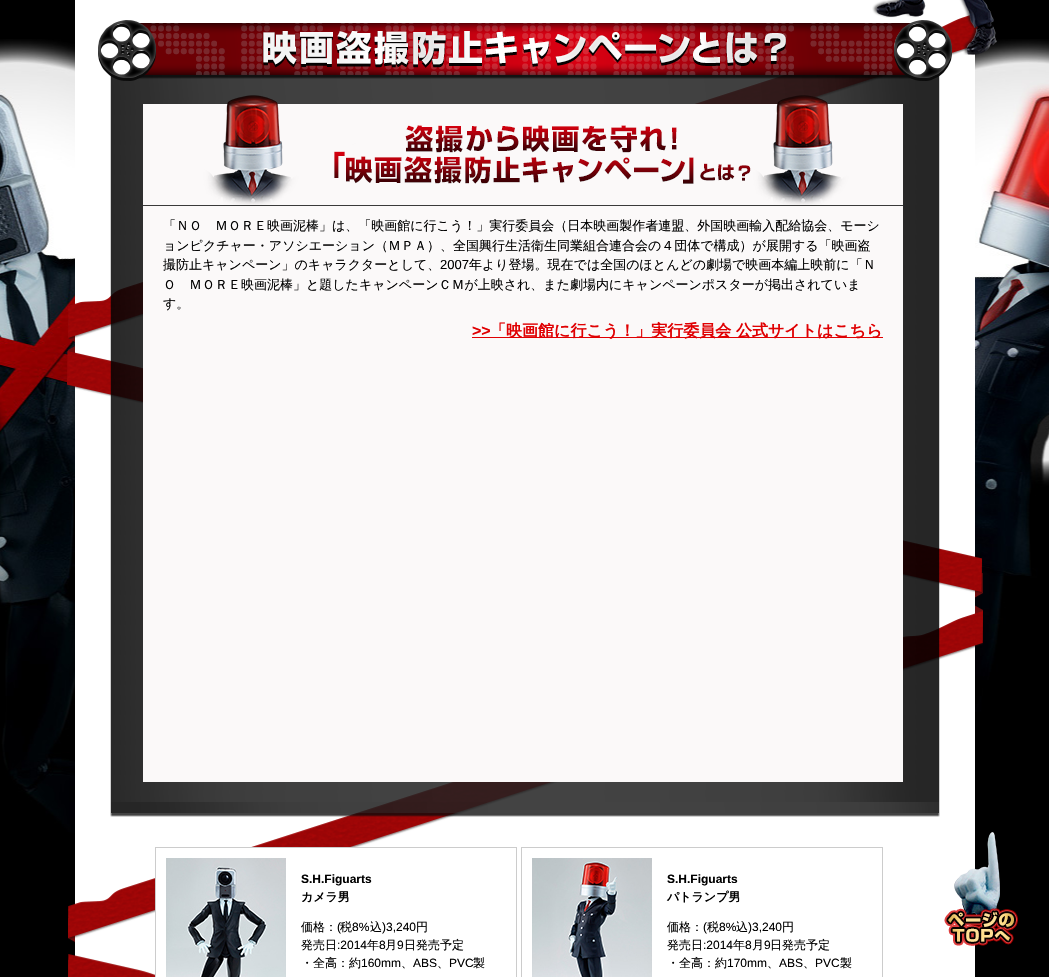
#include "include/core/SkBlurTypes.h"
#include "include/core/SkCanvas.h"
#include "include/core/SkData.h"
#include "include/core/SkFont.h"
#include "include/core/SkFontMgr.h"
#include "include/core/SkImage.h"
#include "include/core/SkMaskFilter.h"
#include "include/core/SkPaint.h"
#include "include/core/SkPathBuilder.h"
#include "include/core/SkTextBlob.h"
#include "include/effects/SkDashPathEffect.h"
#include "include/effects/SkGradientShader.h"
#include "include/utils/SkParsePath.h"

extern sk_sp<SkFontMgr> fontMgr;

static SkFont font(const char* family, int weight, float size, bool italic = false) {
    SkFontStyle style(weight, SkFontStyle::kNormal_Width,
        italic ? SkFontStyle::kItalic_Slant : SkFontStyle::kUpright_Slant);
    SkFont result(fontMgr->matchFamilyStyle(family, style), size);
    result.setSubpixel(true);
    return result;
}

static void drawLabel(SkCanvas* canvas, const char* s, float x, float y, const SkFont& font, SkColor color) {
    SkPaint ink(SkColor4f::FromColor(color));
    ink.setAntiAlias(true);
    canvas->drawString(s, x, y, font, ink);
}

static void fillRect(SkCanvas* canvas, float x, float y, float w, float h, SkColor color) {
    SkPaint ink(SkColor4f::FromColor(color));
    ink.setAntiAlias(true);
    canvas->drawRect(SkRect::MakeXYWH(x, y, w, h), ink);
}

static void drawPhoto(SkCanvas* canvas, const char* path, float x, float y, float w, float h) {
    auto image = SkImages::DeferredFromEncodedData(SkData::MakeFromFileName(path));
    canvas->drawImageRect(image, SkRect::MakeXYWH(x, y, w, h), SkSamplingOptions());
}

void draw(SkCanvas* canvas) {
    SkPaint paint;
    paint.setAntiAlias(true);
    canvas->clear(0xFF000000);
    drawPhoto(canvas, "assets/img1.png", 0, 39, 1049, 794);
    drawPhoto(canvas, "assets/img3.png", 67, 0, 916, 977);
    drawPhoto(canvas, "assets/img4.png", 98, 20, 854, 65);
    drawPhoto(canvas, "assets/img2.png", 872, 0, 125, 55);
    drawPhoto(canvas, "assets/img5.png", 110, 85, 830, 717);
    drawPhoto(canvas, "assets/img6.png", 143, 95, 760, 110);
    fillRect(canvas, 143, 206, 760, 576, 0xFFFBF9F9);
    fillRect(canvas, 143, 205, 760, 1, 0xFF3A3A3A);
    SkFont font1 = font("WenQuanYi Zen Hei", 500, 13);
    drawLabel(canvas, "「ＮＯ　ＭＯＲＥ映画泥棒」は、「映画館に行こう！」実行委員会（日本映画製作者連盟、外国映画輸入配給協会、モーシ", 163, 230, font1, 0xFF000000);
    drawLabel(canvas, "ョンピクチャー・アソシエーション（ＭＰＡ）、全国興行生活衛生同業組合連合会の４団体で構成）が展開する「映画盗", 163, 250, font1, 0xFF000000);
    drawLabel(canvas, "撮防止キャンペーン」のキャラクターとして、", 163, 269, font1, 0xFF000000);
    SkFont font2 = font("Liberation Sans", 400, 13);
    drawLabel(canvas, "2007", 440, 269, font2, 0xFF000000);
    drawLabel(canvas, "年より登場。現在では全国のほとんどの劇場で映画本編上映前に「Ｎ", 469, 269, font1, 0xFF000000);
    drawLabel(canvas, "Ｏ　ＭＯＲＥ映画泥棒」と題したキャンペーンＣＭが上映され、また劇場内にキャンペーンポスターが掲出されていま", 163, 289, font1, 0xFF000000);
    drawLabel(canvas, "す。", 163, 308, font1, 0xFF000000);
    SkFont font3 = font("Liberation Sans", 700, 16);
    drawLabel(canvas, ">>", 472, 336, font3, 0xFFE00002);
    fillRect(canvas, 472, 337, 411, 1, 0xFFE00002);
    SkFont font4 = font("WenQuanYi Zen Hei", 700, 16);
    drawLabel(canvas, "「映画館に行こう！」実行委員会 公式サイトはこちら", 490, 336, font4, 0xFFE00002);
    drawPhoto(canvas, "assets/img7.png", 110, 802, 830, 15);
    fillRect(canvas, 156, 848, 199, 129, 0xFFFFFFFF);
    paint.setStroke(true);
    paint.setStrokeWidth(1);
    paint.setColor(0xFFCCCCCC);
    canvas->drawRect(SkRect::MakeXYWH(155.5f, 847.5f, 361, 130), paint);
    drawPhoto(canvas, "assets/img8.png", 166, 858, 120, 119);
    SkFont font5 = font("Liberation Sans", 700, 12);
    drawLabel(canvas, "S.H.Figuarts", 301, 883, font5, 0xFF000000);
    SkFont font6 = font("WenQuanYi Zen Hei", 700, 12);
    drawLabel(canvas, "カメラ男", 301, 901, font6, 0xFF000000);
    SkFont font7 = font("WenQuanYi Zen Hei", 500, 12);
    drawLabel(canvas, "価格：", 301, 931, font7, 0xFF000000);
    SkFont font8 = font("Liberation Sans", 400, 12);
    drawLabel(canvas, "(", 337, 931, font8, 0xFF000000);
    drawLabel(canvas, "税", 340, 931, font7, 0xFF000000);
    drawLabel(canvas, "8%", 352, 931, font8, 0xFF000000);
    drawLabel(canvas, "込", 370, 931, font7, 0xFF000000);
    drawLabel(canvas, ")3,240", 382, 931, font8, 0xFF000000);
    drawLabel(canvas, "円", 416, 931, font7, 0xFF000000);
    drawLabel(canvas, "発売日", 301, 949, font7, 0xFF000000);
    drawLabel(canvas, ":2014", 337, 949, font8, 0xFF000000);
    drawLabel(canvas, "年", 367, 949, font7, 0xFF000000);
    drawLabel(canvas, "8", 379, 949, font8, 0xFF000000);
    drawLabel(canvas, "月", 385, 949, font7, 0xFF000000);
    drawLabel(canvas, "9", 397, 949, font8, 0xFF000000);
    drawLabel(canvas, "日発売予定", 404, 949, font7, 0xFF000000);
    drawLabel(canvas, "・全高：約", 301, 967, font7, 0xFF000000);
    drawLabel(canvas, "160mm", 361, 967, font8, 0xFF000000);
    drawLabel(canvas, "、", 401, 967, font7, 0xFF000000);
    drawLabel(canvas, "ABS", 413, 967, font8, 0xFF000000);
    drawLabel(canvas, "、", 437, 967, font7, 0xFF000000);
    drawLabel(canvas, "PVC", 449, 967, font8, 0xFF000000);
    drawLabel(canvas, "製", 473, 967, font7, 0xFF000000);
    canvas->drawRect(SkRect::MakeXYWH(521.5f, 847.5f, 361, 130), paint);
    drawPhoto(canvas, "assets/img9.png", 532, 858, 120, 119);
    drawLabel(canvas, "S.H.Figuarts", 667, 883, font5, 0xFF000000);
    drawLabel(canvas, "パトランプ男", 667, 901, font6, 0xFF000000);
    drawLabel(canvas, "価格：", 667, 931, font7, 0xFF000000);
    drawLabel(canvas, "(", 703, 931, font8, 0xFF000000);
    drawLabel(canvas, "税", 707, 931, font7, 0xFF000000);
    drawLabel(canvas, "8%", 719, 931, font8, 0xFF000000);
    drawLabel(canvas, "込", 736, 931, font7, 0xFF000000);
    drawLabel(canvas, ")3,240", 748, 931, font8, 0xFF000000);
    drawLabel(canvas, "円", 782, 931, font7, 0xFF000000);
    drawLabel(canvas, "発売日", 667, 949, font7, 0xFF000000);
    drawLabel(canvas, ":2014", 703, 949, font8, 0xFF000000);
    drawLabel(canvas, "年", 733, 949, font7, 0xFF000000);
    drawLabel(canvas, "8", 745, 949, font8, 0xFF000000);
    drawLabel(canvas, "月", 752, 949, font7, 0xFF000000);
    drawLabel(canvas, "9", 764, 949, font8, 0xFF000000);
    drawLabel(canvas, "日発売予定", 770, 949, font7, 0xFF000000);
    drawLabel(canvas, "・全高：約", 667, 967, font7, 0xFF000000);
    drawLabel(canvas, "170mm", 727, 967, font8, 0xFF000000);
    drawLabel(canvas, "、", 767, 967, font7, 0xFF000000);
    drawLabel(canvas, "ABS", 779, 967, font8, 0xFF000000);
    drawLabel(canvas, "、", 803, 967, font7, 0xFF000000);
    drawLabel(canvas, "PVC", 815, 967, font8, 0xFF000000);
    drawLabel(canvas, "製", 840, 967, font7, 0xFF000000);
    drawPhoto(canvas, "assets/img10.png", 944, 832, 74, 114);
}
